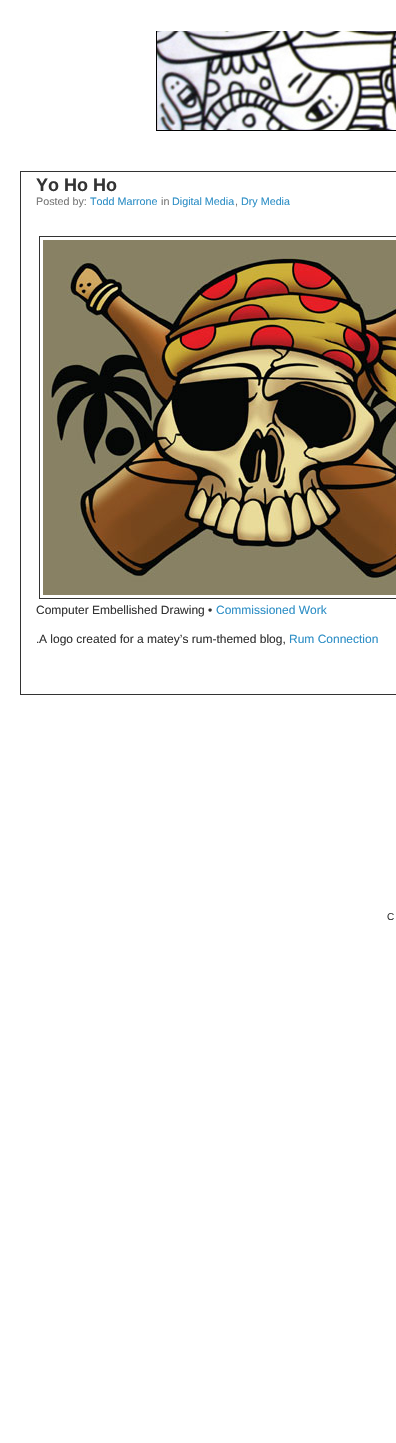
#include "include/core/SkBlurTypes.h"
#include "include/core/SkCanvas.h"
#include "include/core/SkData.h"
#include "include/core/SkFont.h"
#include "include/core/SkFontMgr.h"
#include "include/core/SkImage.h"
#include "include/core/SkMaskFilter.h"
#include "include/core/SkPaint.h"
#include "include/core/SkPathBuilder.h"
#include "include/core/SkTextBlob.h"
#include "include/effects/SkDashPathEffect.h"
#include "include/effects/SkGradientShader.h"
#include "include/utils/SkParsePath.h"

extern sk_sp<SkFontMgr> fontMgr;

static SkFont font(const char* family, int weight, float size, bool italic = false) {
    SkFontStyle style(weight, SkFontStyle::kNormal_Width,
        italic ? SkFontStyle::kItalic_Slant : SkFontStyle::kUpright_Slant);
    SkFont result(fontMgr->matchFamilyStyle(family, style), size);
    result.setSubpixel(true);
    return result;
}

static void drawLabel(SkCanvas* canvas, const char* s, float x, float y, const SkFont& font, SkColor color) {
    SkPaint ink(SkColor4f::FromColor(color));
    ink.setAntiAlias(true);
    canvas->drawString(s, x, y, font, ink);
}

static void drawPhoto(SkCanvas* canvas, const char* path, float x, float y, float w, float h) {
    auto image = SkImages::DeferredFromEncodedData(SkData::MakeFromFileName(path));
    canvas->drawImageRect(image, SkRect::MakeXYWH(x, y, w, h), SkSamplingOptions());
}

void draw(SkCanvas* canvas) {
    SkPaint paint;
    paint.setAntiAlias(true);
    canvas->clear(0xFFFFFFFF);
    drawPhoto(canvas, "assets/img1.png", 156, 31, 240, 100);
    paint.setStroke(true);
    paint.setStrokeWidth(1);
    paint.setColor(0xFF333333);
    canvas->drawRect(SkRect::MakeXYWH(20.5f, 171.5f, 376, 523), paint);
    SkFont font1 = font("Liberation Sans", 700, 18);
    drawLabel(canvas, "Yo Ho Ho", 36, 191, font1, 0xFF333333);
    SkFont font2 = font("Liberation Sans", 400, 10.75f);
    drawLabel(canvas, "Posted by:", 36, 205, font2, 0xFF777777);
    drawLabel(canvas, "Todd Marrone", 90, 205, font2, 0xFF2E8FC6);
    drawLabel(canvas, "in", 161, 205, font2, 0xFF777777);
    drawLabel(canvas, "Digital Media", 172, 205, font2, 0xFF2E8FC6);
    drawLabel(canvas, ",", 235, 205, font2, 0xFF777777);
    drawLabel(canvas, "Dry Media", 241, 205, font2, 0xFF2E8FC6);
    canvas->drawRect(SkRect::MakeXYWH(39.5f, 236.5f, 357, 362), paint);
    drawPhoto(canvas, "assets/img2.png", 43, 240, 353, 355);
    SkFont font3 = font("Liberation Sans", 400, 12);
    drawLabel(canvas, "Computer Embellished Drawing •", 36, 614, font3, 0xFF333333);
    drawLabel(canvas, "Commissioned Work", 216, 614, font3, 0xFF2E8FC6);
    drawLabel(canvas, ".", 36, 643, font3, 0xFF333333);
    drawLabel(canvas, "A logo created for a matey’s rum-themed blog,", 39, 643, font3, 0xFF333333);
    drawLabel(canvas, "Rum Connection", 289, 643, font3, 0xFF2E8FC6);
    SkFont font4 = font("Liberation Sans", 400, 10);
    drawLabel(canvas, "C", 387, 920, font4, 0xFF333333);
}
